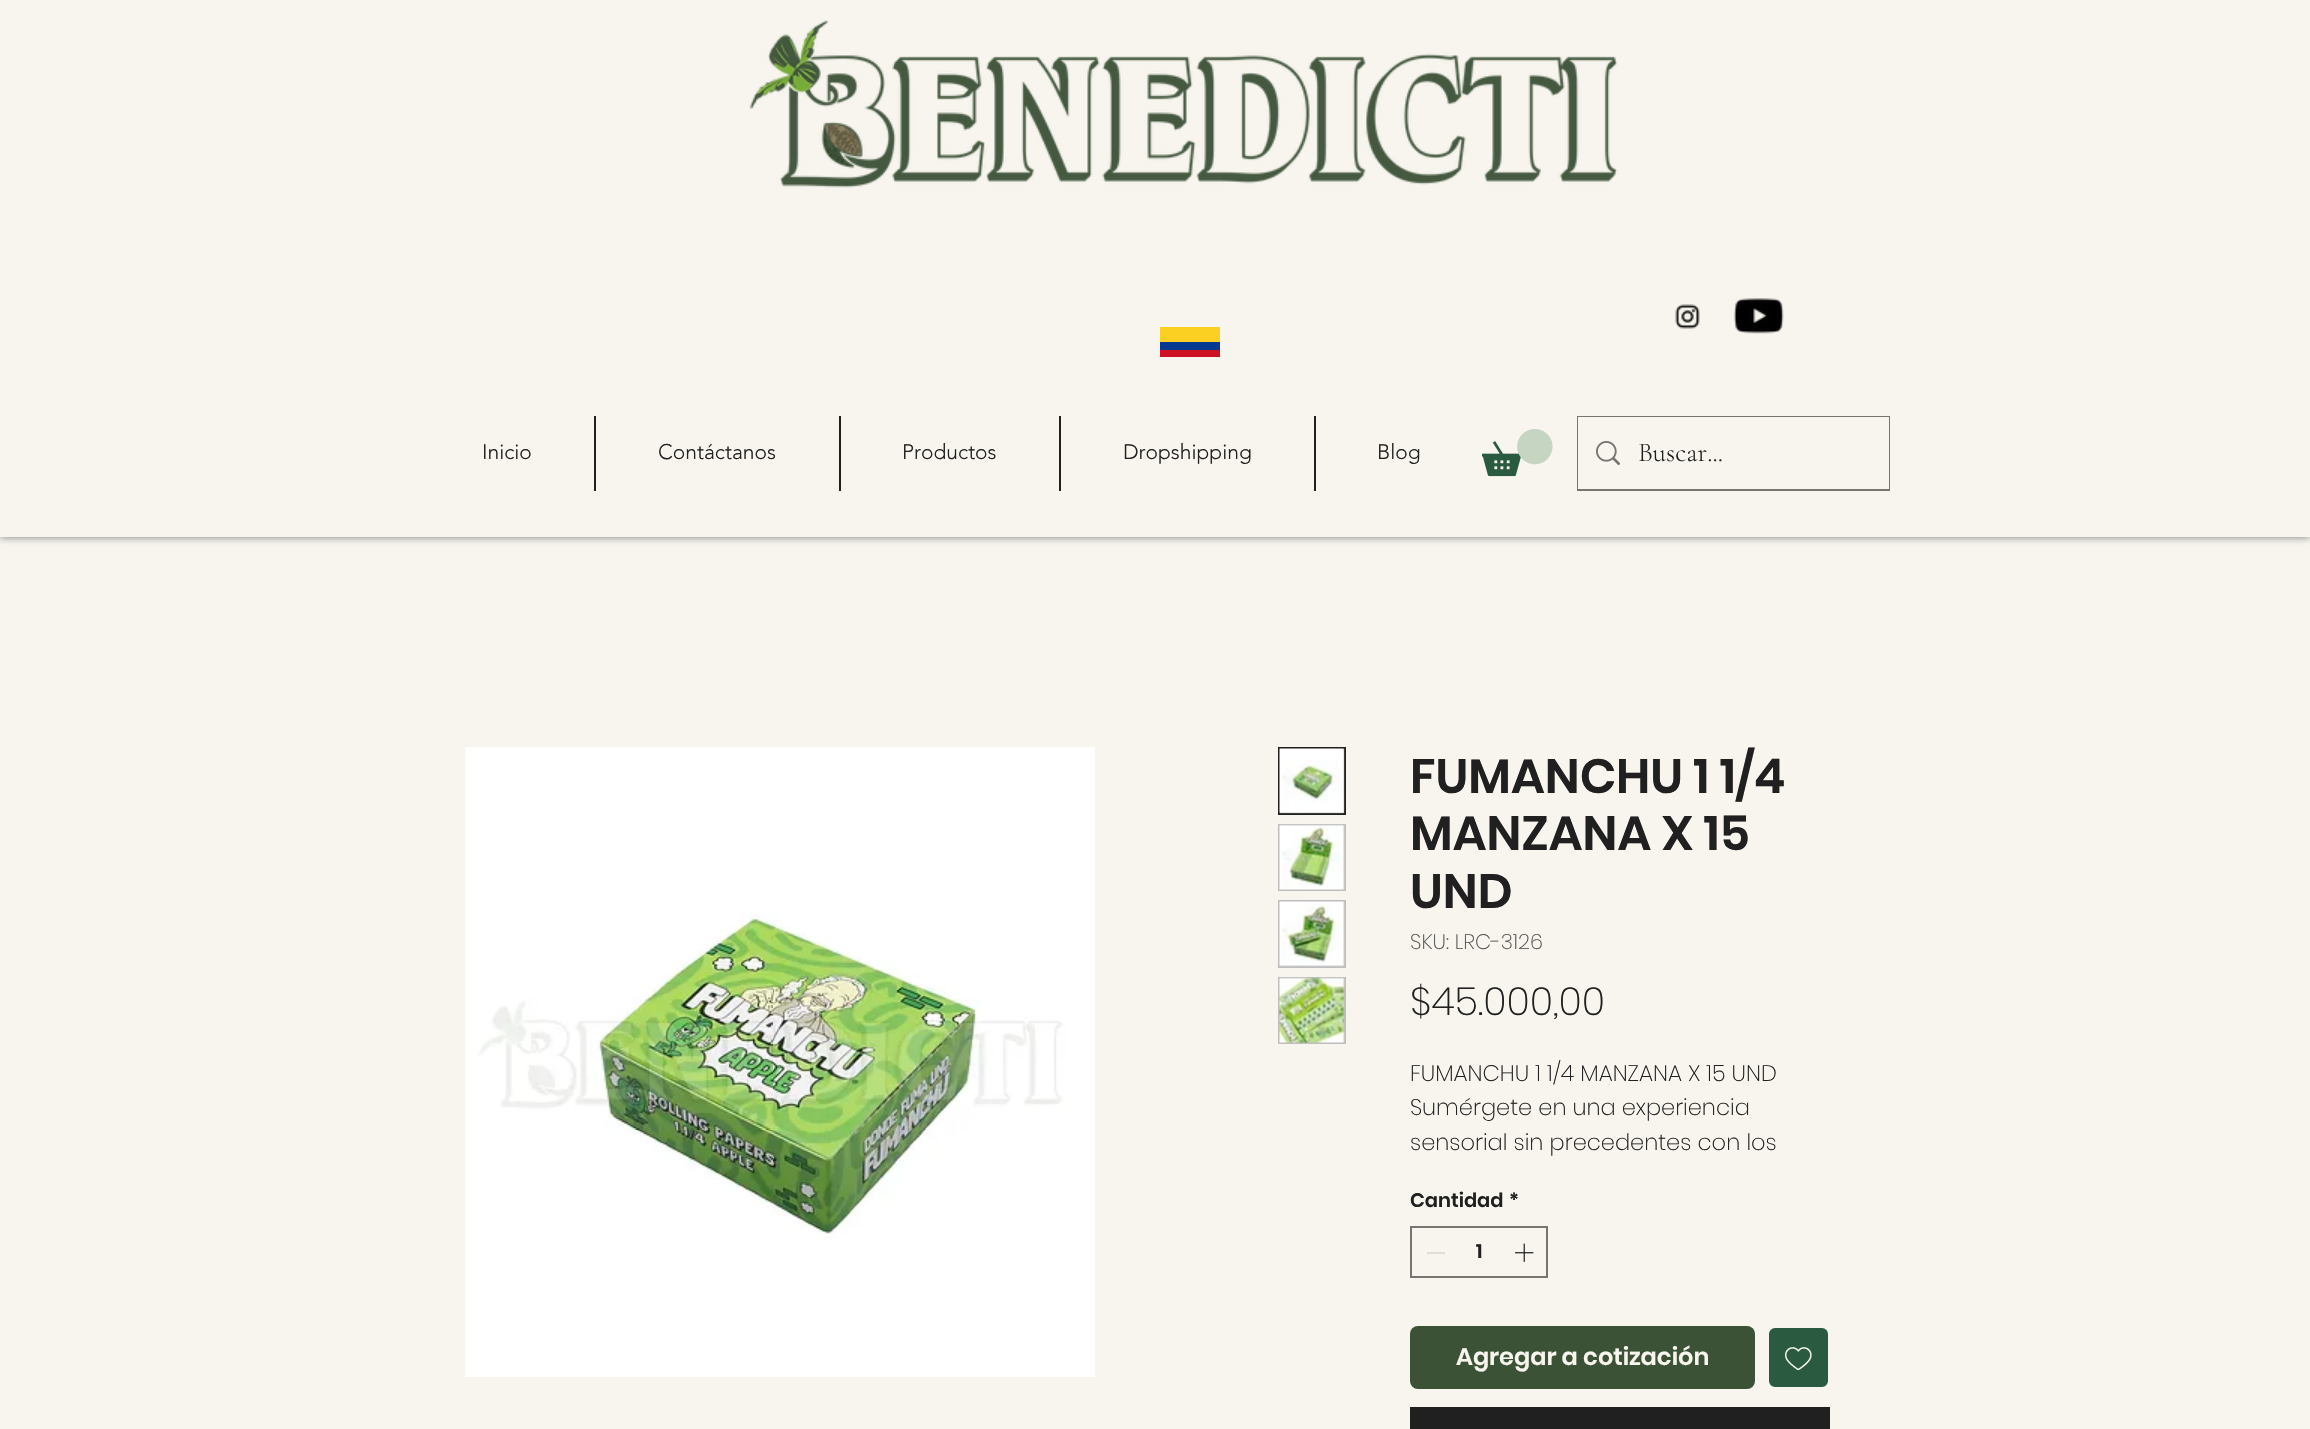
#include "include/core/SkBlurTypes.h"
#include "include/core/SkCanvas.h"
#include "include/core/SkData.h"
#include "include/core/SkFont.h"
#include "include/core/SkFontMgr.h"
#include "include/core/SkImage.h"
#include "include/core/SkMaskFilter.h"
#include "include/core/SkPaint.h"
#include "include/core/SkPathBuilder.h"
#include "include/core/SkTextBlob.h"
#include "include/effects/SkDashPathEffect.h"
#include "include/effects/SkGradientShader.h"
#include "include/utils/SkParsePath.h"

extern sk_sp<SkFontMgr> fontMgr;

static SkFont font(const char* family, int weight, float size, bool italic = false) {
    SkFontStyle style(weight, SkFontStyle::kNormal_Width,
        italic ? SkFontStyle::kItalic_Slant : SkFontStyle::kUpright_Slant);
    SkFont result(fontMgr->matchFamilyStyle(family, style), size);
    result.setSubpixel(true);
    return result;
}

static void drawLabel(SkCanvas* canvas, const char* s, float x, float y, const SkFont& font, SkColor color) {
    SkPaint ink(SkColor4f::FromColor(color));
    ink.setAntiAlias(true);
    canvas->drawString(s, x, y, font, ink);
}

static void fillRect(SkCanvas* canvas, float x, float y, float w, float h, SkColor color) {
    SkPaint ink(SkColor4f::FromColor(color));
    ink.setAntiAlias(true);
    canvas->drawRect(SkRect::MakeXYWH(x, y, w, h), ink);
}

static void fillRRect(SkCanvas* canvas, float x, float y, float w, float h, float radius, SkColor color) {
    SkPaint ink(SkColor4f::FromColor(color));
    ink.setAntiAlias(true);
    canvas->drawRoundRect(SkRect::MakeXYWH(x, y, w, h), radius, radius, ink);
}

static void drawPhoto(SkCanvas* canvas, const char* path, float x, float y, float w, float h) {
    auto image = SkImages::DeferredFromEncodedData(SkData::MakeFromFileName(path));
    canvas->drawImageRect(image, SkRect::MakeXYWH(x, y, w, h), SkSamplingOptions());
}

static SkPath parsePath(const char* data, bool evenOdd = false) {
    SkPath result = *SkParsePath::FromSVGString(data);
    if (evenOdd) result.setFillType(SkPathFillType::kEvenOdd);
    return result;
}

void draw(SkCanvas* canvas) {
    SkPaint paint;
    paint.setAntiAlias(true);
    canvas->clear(0xFFF7F5EE);
    paint.setColor(0x80000000);
    paint.setMaskFilter(SkMaskFilter::MakeBlur(kNormal_SkBlurStyle, 4));
    canvas->drawRect(SkRect::MakeXYWH(0, 0, 2310, 537), paint);
    paint.setMaskFilter(nullptr);
    fillRect(canvas, 0, 0, 2310, 537, 0xFFF7F5EE);
    drawPhoto(canvas, "assets/img1.png", 749, 20, 869, 168);
    drawPhoto(canvas, "assets/img2.png", 1675, 304, 25, 25);
    drawPhoto(canvas, "assets/img3.png", 1733, 298, 51, 36);
    paint.setColor(0xFF053891);
    canvas->drawPath(parsePath("M1160 342V350L1190 353L1220 350V342L1190 339Z"), paint);
    fillRect(canvas, 1160, 350, 60, 7, 0xFFCD1225);
    fillRect(canvas, 1160, 327, 60, 15, 0xFFFBD023);
    SkFont font1 = font("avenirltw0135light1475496", 300, 21);
    drawLabel(canvas, "Inicio", 482, 459, font1, 0xFF202020);
    fillRect(canvas, 594, 416, 2, 75, 0xFF202020);
    drawLabel(canvas, "Contáctanos", 658, 459, font1, 0xFF202020);
    fillRect(canvas, 839, 416, 2, 75, 0xFF202020);
    drawLabel(canvas, "Productos", 902, 459, font1, 0xFF202020);
    fillRect(canvas, 1059, 416, 2, 75, 0xFF202020);
    drawLabel(canvas, "Dropshipping", 1123, 459, font1, 0xFF202020);
    fillRect(canvas, 1314, 416, 2, 75, 0xFF202020);
    drawLabel(canvas, "Blog", 1377, 459, font1, 0xFF202020);
    drawPhoto(canvas, "assets/img4.png", 1482, 429, 71, 48);
    paint.setStroke(true);
    paint.setStrokeWidth(2);
    paint.setColor(0xFF767572);
    canvas->drawRect(SkRect::MakeXYWH(1578, 417, 311, 73), paint);
    fillRect(canvas, 1578, 417, 311, 72, 0xFFF7F5EE);
    drawPhoto(canvas, "assets/img5.png", 1596, 441, 24, 24);
    SkFont font2 = font("Cormorant Garamond", 300, 27);
    drawLabel(canvas, "Buscar...", 1638, 461, font2, 0xFF202020);
    drawPhoto(canvas, "assets/img6.png", 465, 747, 630, 630);
    paint.setStroke(false);
    paint.setColor(0xFFBEBEBE);
    canvas->drawRect(SkRect::MakeXYWH(1279, 748, 66, 66), paint);
    paint.setStroke(true);
    paint.setColor(0xFF202020);
    canvas->drawRect(SkRect::MakeXYWH(1279, 748, 66, 66), paint);
    drawPhoto(canvas, "assets/img7.png", 1279, 748, 66, 66);
    fillRect(canvas, 1278, 824, 68, 67, 0xFFBEBEBE);
    drawPhoto(canvas, "assets/img8.png", 1279, 824, 66, 66);
    fillRect(canvas, 1278, 900, 68, 68, 0xFFBEBEBE);
    drawPhoto(canvas, "assets/img9.png", 1279, 901, 66, 66);
    fillRect(canvas, 1278, 977, 68, 67, 0xFFBEBEBE);
    drawPhoto(canvas, "assets/img10.png", 1279, 977, 66, 66);
    SkFont font3 = font("Poppins", 600, 48);
    drawLabel(canvas, "FUMANCHU 1 1/4", 1410, 793, font3, 0xFF202020);
    drawLabel(canvas, "MANZANA X 15", 1410, 850, font3, 0xFF202020);
    drawLabel(canvas, "UND", 1410, 908, font3, 0xFF202020);
    SkFont font4 = font("Poppins", 200, 21);
    drawLabel(canvas, "SKU: LRC-3126", 1410, 949, font4, 0xFF555555);
    SkFont font5 = font("Poppins", 200, 39);
    drawLabel(canvas, "$45.000,00", 1410, 1015, font5, 0xFF202020);
    SkFont font6 = font("Poppins", 200, 22.5f);
    drawLabel(canvas, "FUMANCHU 1 1/4 MANZANA X 15 UND", 1410, 1081, font6, 0xFF202020);
    drawLabel(canvas, "Sumérgete en una experiencia", 1410, 1115, font6, 0xFF202020);
    drawLabel(canvas, "sensorial sin precedentes con los", 1410, 1150, font6, 0xFF202020);
    SkFont font7 = font("Poppins", 600, 19.5f);
    drawLabel(canvas, "Cantidad", 1410, 1207, font7, 0xFF202020);
    drawLabel(canvas, "*", 1509, 1207, font7, 0xFF202020);
    paint.setColor(0xFF767572);
    canvas->drawRect(SkRect::MakeXYWH(1411, 1227, 136, 50), paint);
    fillRect(canvas, 1427, 1252, 18, 2, 0xFFDFDEDB);
    drawLabel(canvas, "1", 1476, 1258, font7, 0xFF202020);
    drawPhoto(canvas, "assets/img11.png", 1515, 1243, 19, 19);
    fillRRect(canvas, 1410, 1326, 345, 63, 8, 0xFF3C5237);
    SkFont font8 = font("Poppins", 600, 24);
    drawLabel(canvas, "Agregar a cotización", 1456, 1365, font8, 0xFFF7F5EE);
    paint.setStroke(false);
    paint.setColor(0xFF2A5B41);
    canvas->drawRoundRect(SkRect::MakeXYWH(1768, 1327, 61, 61), 7, 7, paint);
    paint.setStroke(true);
    paint.setColor(0xFFF7F5EE);
    canvas->drawRoundRect(SkRect::MakeXYWH(1768, 1327, 61, 61), 7, 7, paint);
    drawPhoto(canvas, "assets/img12.png", 1785, 1347, 27, 24);
    fillRect(canvas, 1410, 1407, 420, 22, 0xFF202020);
}
